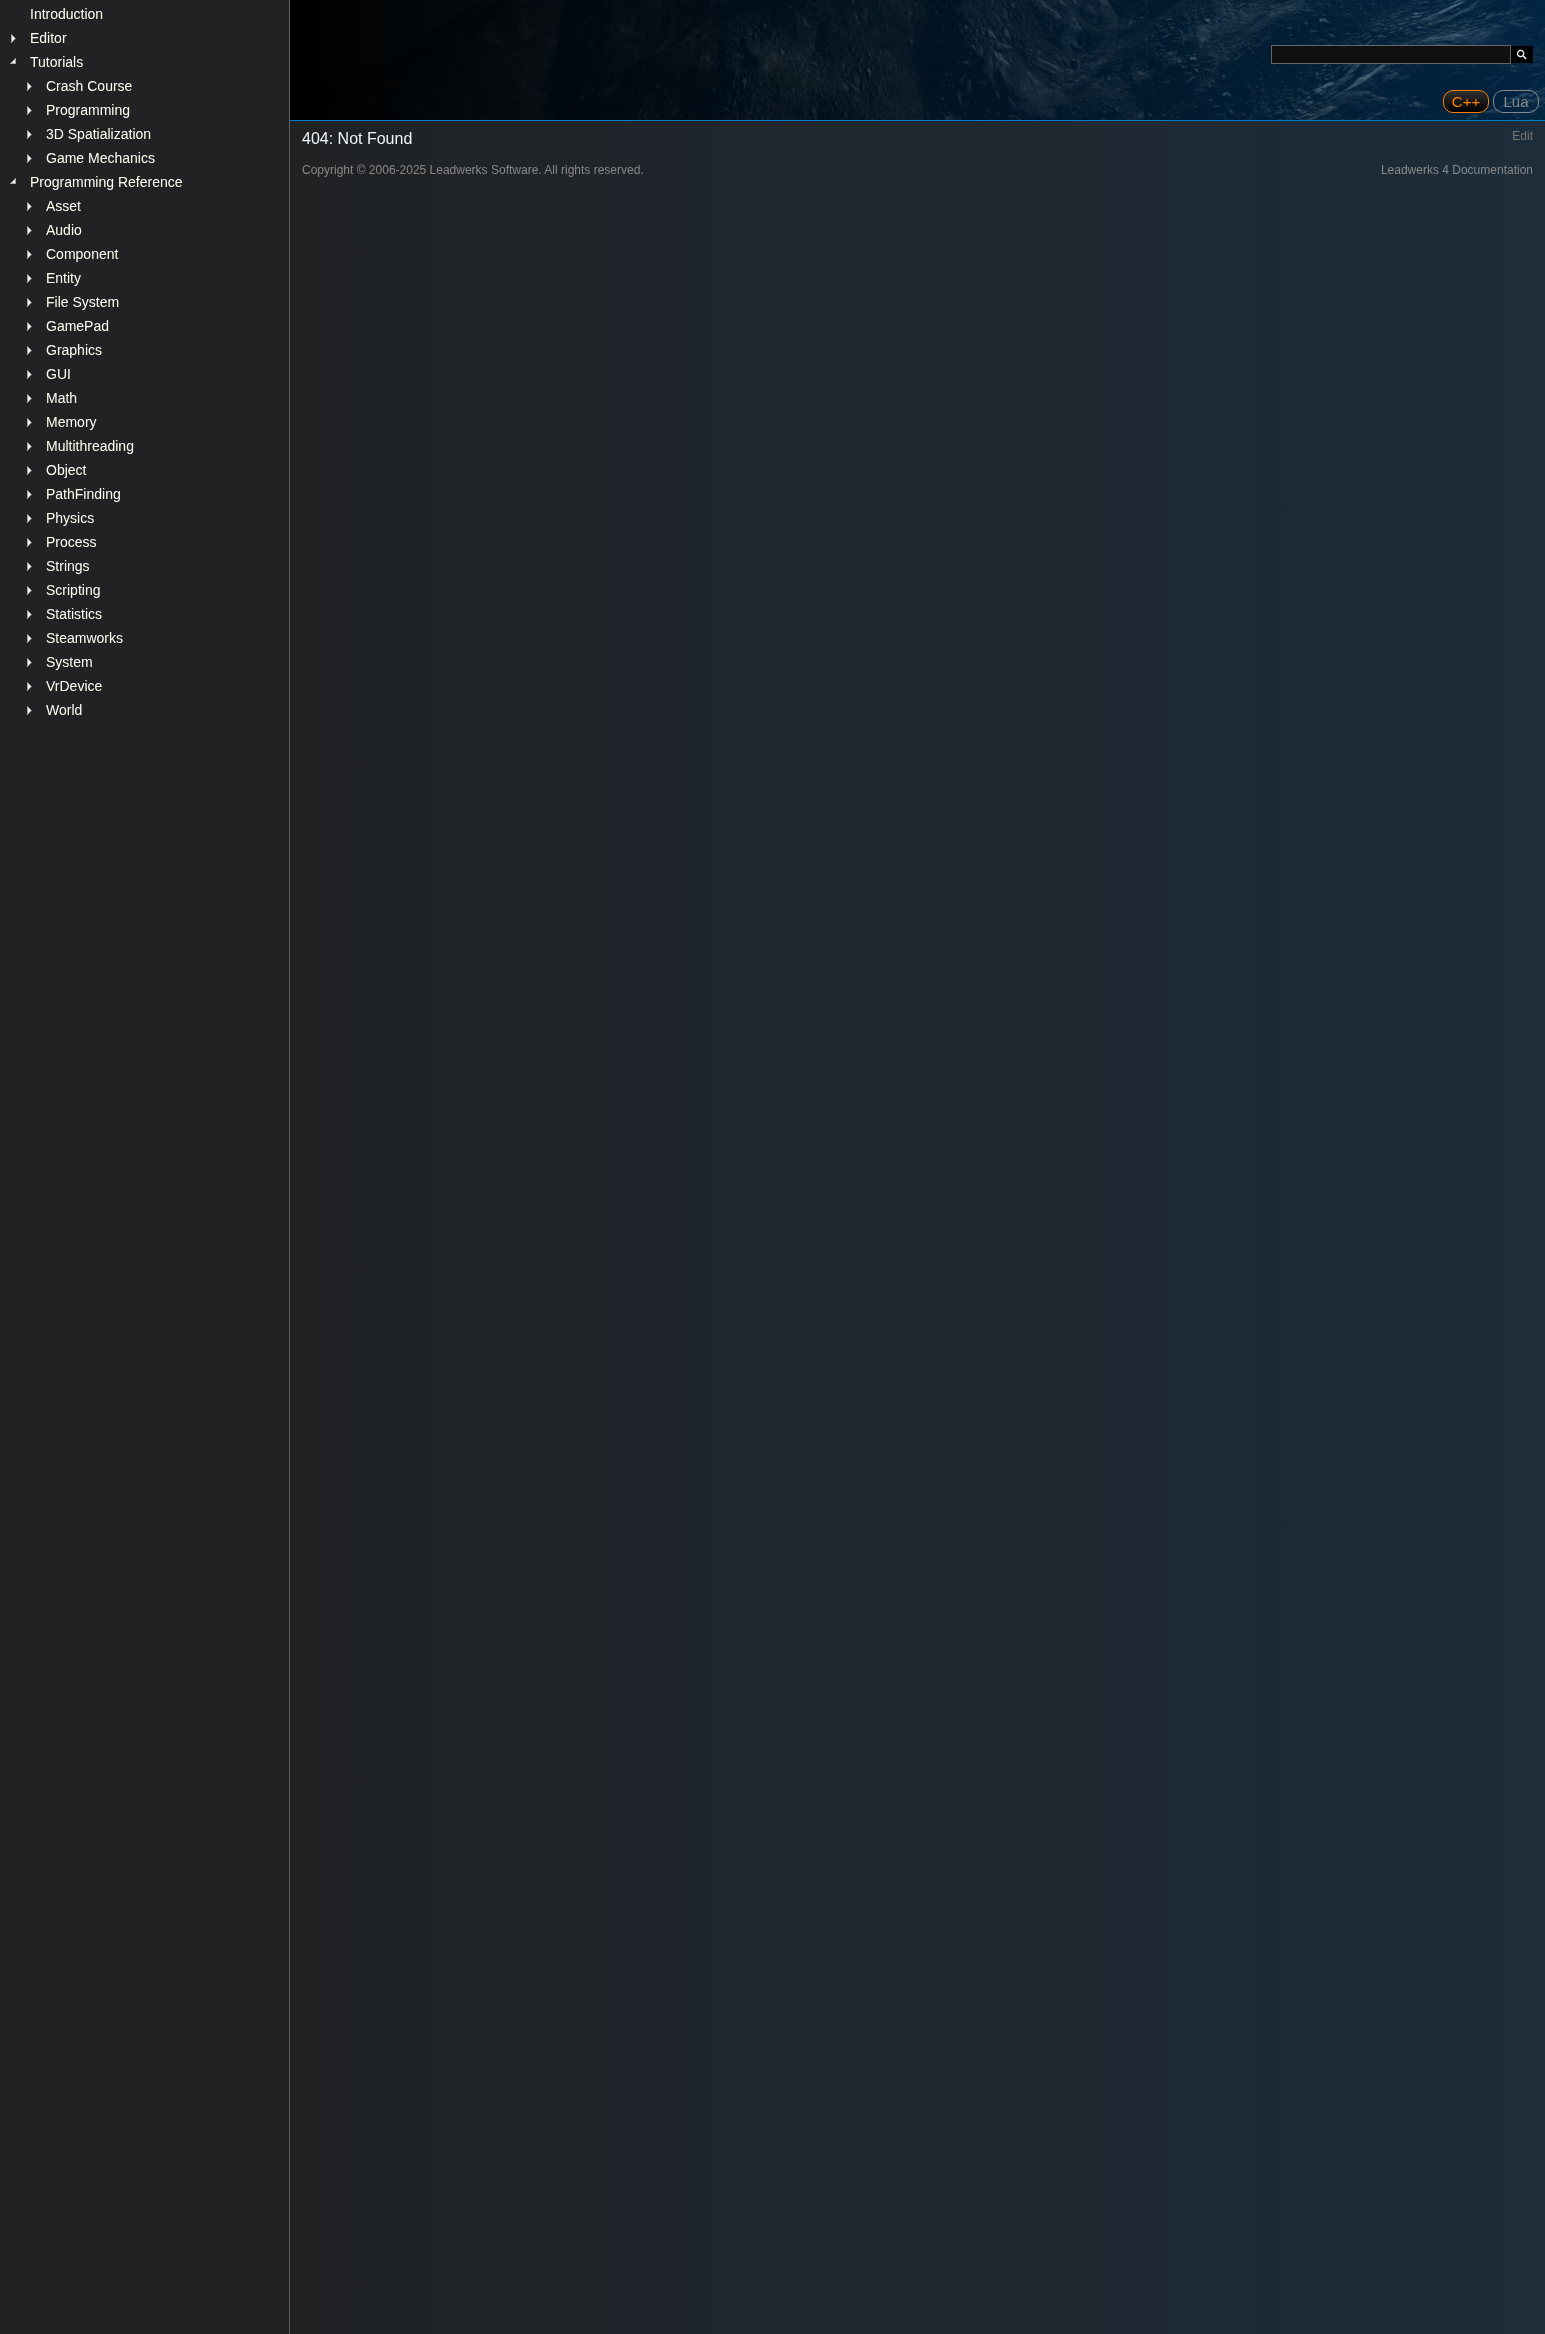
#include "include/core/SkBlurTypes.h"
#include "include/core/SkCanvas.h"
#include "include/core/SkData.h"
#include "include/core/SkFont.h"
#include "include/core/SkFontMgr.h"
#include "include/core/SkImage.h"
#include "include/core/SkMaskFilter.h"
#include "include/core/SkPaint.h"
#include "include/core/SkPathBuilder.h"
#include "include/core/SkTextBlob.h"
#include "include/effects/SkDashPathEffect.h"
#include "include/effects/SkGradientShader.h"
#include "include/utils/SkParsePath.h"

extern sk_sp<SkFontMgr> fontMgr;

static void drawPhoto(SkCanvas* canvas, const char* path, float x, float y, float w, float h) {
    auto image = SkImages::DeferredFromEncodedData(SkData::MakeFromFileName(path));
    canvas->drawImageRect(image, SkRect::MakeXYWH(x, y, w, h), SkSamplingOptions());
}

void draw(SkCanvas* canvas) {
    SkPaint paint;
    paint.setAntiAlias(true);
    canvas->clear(0xFF595E62);
    drawPhoto(canvas, "assets/img1.png", 0, 0, 289, 2334);
    drawPhoto(canvas, "assets/img2.png", 290, 0, 1255, 2334);
}
